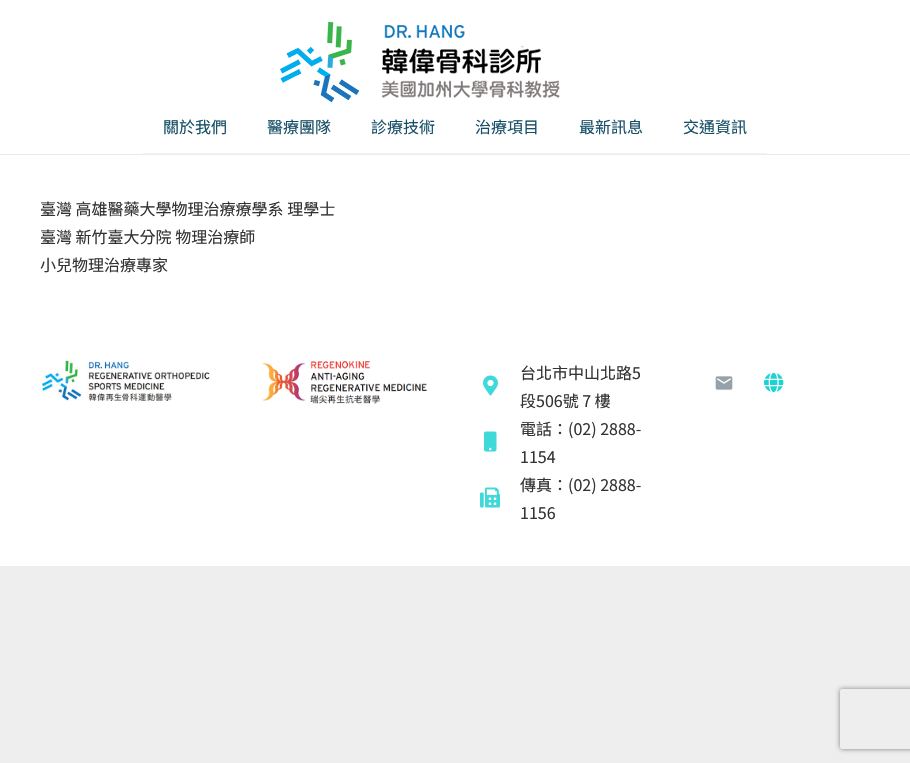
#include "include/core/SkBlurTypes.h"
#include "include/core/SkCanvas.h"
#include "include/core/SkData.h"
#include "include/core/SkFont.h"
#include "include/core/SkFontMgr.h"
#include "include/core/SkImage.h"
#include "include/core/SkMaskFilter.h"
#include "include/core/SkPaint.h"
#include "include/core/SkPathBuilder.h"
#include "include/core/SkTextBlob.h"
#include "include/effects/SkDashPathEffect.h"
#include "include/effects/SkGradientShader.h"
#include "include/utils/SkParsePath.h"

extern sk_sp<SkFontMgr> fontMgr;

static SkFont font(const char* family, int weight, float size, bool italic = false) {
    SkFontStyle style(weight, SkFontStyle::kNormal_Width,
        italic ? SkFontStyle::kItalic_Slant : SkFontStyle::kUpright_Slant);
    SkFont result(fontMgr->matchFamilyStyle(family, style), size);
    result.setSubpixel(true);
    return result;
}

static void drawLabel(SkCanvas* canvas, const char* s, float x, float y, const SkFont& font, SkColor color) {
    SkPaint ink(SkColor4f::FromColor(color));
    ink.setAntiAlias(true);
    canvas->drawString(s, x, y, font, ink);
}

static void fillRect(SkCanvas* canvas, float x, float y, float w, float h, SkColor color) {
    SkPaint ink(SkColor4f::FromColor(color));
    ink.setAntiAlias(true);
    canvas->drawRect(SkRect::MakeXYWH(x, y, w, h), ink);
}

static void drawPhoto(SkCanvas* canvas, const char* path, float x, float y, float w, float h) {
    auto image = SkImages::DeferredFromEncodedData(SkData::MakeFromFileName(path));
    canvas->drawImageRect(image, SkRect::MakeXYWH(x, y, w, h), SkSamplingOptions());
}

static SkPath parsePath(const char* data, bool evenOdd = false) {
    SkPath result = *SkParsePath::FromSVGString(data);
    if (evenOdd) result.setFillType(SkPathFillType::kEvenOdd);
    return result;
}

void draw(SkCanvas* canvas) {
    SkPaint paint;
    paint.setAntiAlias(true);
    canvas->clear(0xFFEEEEEE);
    fillRect(canvas, 0, 0, 910, 566, 0xFFFFFFFF);
    drawPhoto(canvas, "assets/img1.png", 280, 22, 79, 80);
    drawPhoto(canvas, "assets/img2.png", 382, 25, 178, 73);
    fillRect(canvas, 0, 154, 910, 1, 0xFFEBEBEB);
    fillRect(canvas, 143, 153, 624, 1, 0xFFF3F3F3);
    SkFont font1 = font("Noto Sans TC", 400, 16);
    drawLabel(canvas, "關於我們", 163, 133, font1, 0xFF174F68);
    drawLabel(canvas, "醫療團隊", 267, 133, font1, 0xFF174F68);
    drawLabel(canvas, "診療技術", 371, 133, font1, 0xFF174F68);
    drawLabel(canvas, "治療項目", 475, 133, font1, 0xFF174F68);
    drawLabel(canvas, "最新訊息", 579, 133, font1, 0xFF174F68);
    drawLabel(canvas, "交通資訊", 683, 133, font1, 0xFF174F68);
    drawLabel(canvas, "臺灣 高雄醫藥大學物理治療療學系 理學士", 40, 215, font1, 0xFF333333);
    drawLabel(canvas, "臺灣 新竹臺大分院 物理治療師", 40, 243, font1, 0xFF333333);
    drawLabel(canvas, "小兒物理治療專家", 40, 271, font1, 0xFF333333);
    drawPhoto(canvas, "assets/img3.png", 40, 358, 170, 43);
    drawPhoto(canvas, "assets/img4.png", 262, 361, 165, 43);
    drawPhoto(canvas, "assets/img5.png", 483, 375, 15, 21);
    drawLabel(canvas, "台北市中山北路5", 520, 379, font1, 0xFF333333);
    drawLabel(canvas, "段506號 7 樓", 520, 407, font1, 0xFF333333);
    drawPhoto(canvas, "assets/img6.png", 484, 431, 13, 21);
    drawLabel(canvas, "電話：(02) 2888-", 520, 435, font1, 0xFF333333);
    drawLabel(canvas, "1154", 520, 463, font1, 0xFF333333);
    drawPhoto(canvas, "assets/img7.png", 480, 487, 20, 21);
    drawLabel(canvas, "傳真：(02) 2888-", 520, 491, font1, 0xFF333333);
    drawLabel(canvas, "1156", 520, 519, font1, 0xFF333333);
    drawPhoto(canvas, "assets/img8.png", 715, 376, 18, 14);
    drawPhoto(canvas, "assets/img9.png", 764, 372, 20, 21);
    canvas->save();
    canvas->clipPath(parsePath("M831 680H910V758H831ZM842 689H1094C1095 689 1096 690 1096 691V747C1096 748 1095 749 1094 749H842C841 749 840 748 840 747V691C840 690 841 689 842 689Z", true), true);
    paint.setColor(0xFF808080);
    paint.setMaskFilter(SkMaskFilter::MakeBlur(kNormal_SkBlurStyle, 2.5f));
    canvas->drawRoundRect(SkRect::MakeXYWH(840, 689, 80, 60), 2, 2, paint);
    paint.setMaskFilter(nullptr);
    canvas->restore();
}
